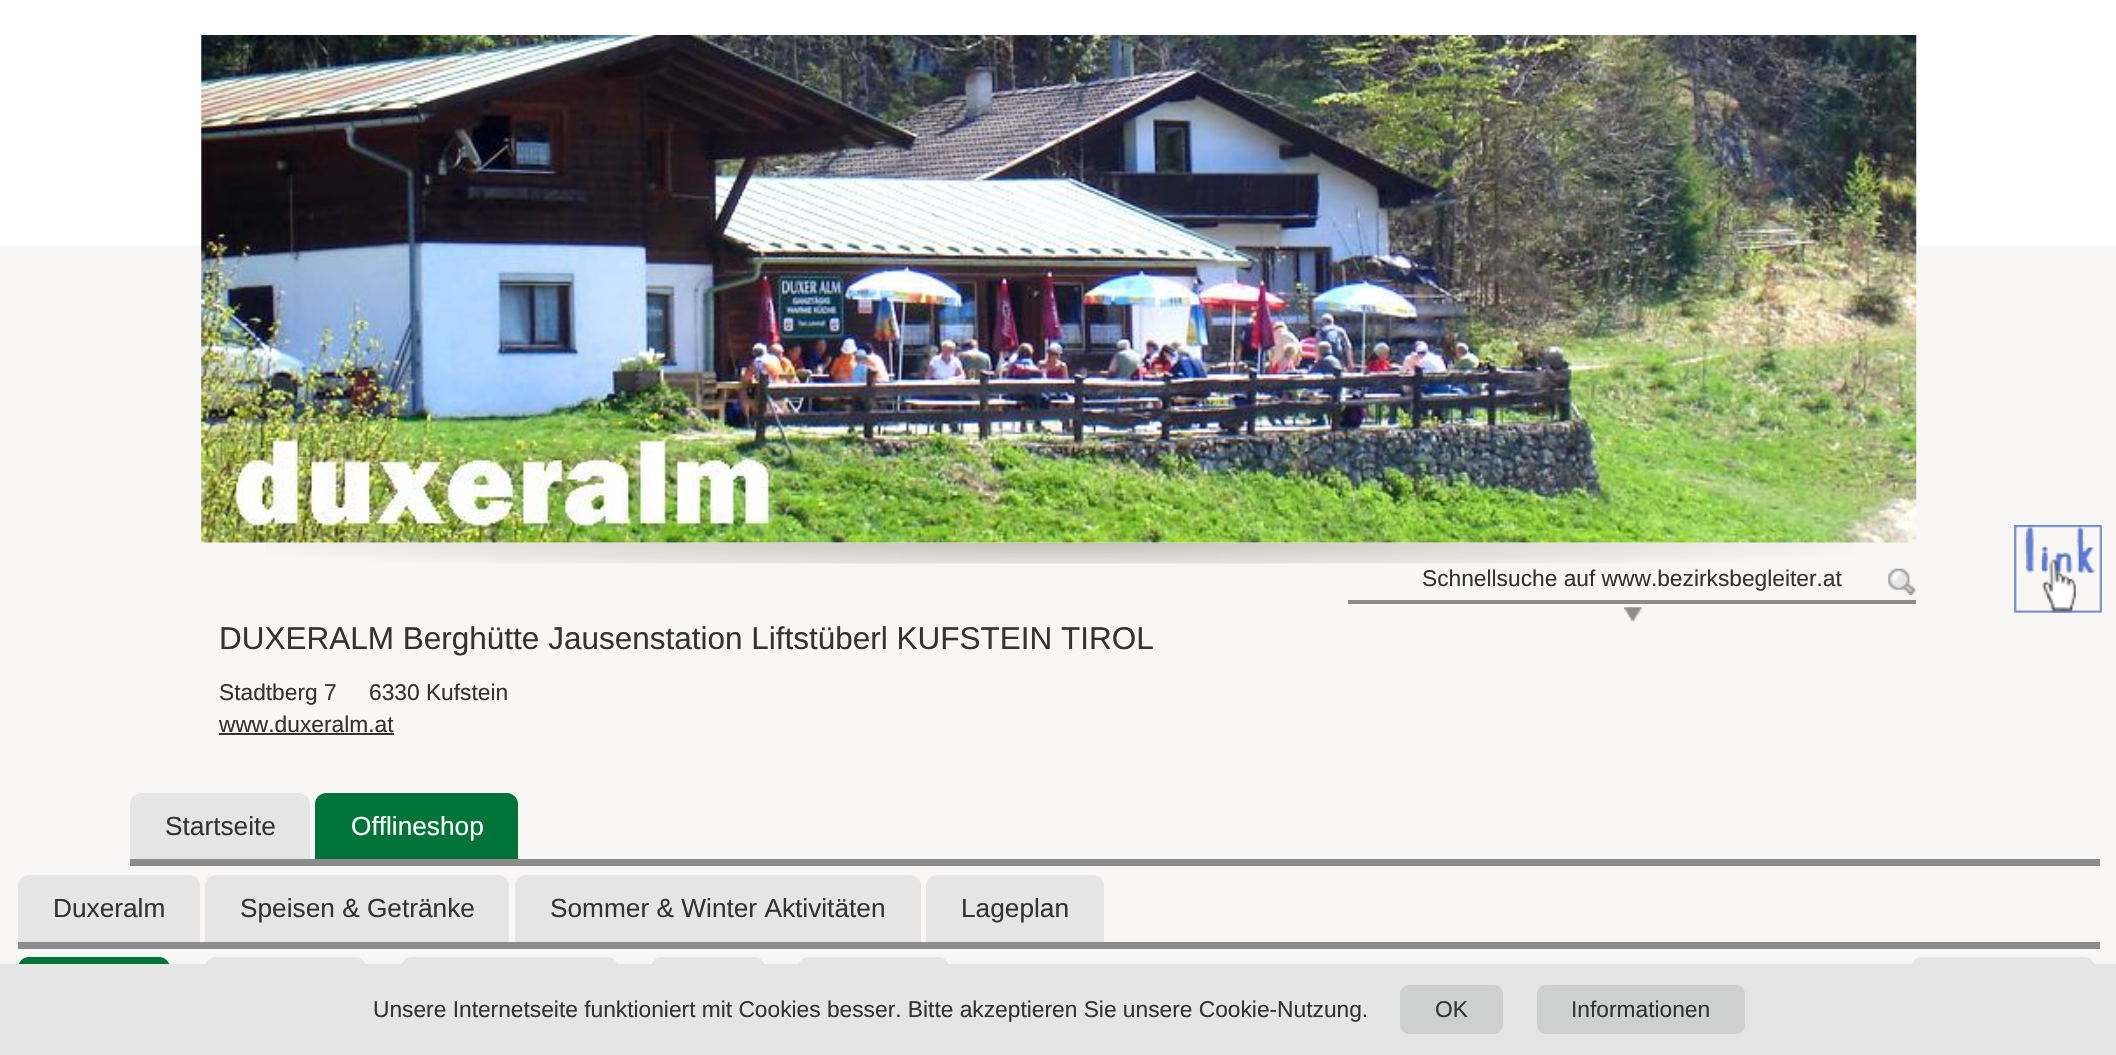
#include "include/core/SkBlurTypes.h"
#include "include/core/SkCanvas.h"
#include "include/core/SkData.h"
#include "include/core/SkFont.h"
#include "include/core/SkFontMgr.h"
#include "include/core/SkImage.h"
#include "include/core/SkMaskFilter.h"
#include "include/core/SkPaint.h"
#include "include/core/SkPathBuilder.h"
#include "include/core/SkTextBlob.h"
#include "include/effects/SkDashPathEffect.h"
#include "include/effects/SkGradientShader.h"
#include "include/utils/SkParsePath.h"

extern sk_sp<SkFontMgr> fontMgr;

static SkFont font(const char* family, int weight, float size, bool italic = false) {
    SkFontStyle style(weight, SkFontStyle::kNormal_Width,
        italic ? SkFontStyle::kItalic_Slant : SkFontStyle::kUpright_Slant);
    SkFont result(fontMgr->matchFamilyStyle(family, style), size);
    result.setSubpixel(true);
    return result;
}

static void drawLabel(SkCanvas* canvas, const char* s, float x, float y, const SkFont& font, SkColor color) {
    SkPaint ink(SkColor4f::FromColor(color));
    ink.setAntiAlias(true);
    canvas->drawString(s, x, y, font, ink);
}

static void fillRect(SkCanvas* canvas, float x, float y, float w, float h, SkColor color) {
    SkPaint ink(SkColor4f::FromColor(color));
    ink.setAntiAlias(true);
    canvas->drawRect(SkRect::MakeXYWH(x, y, w, h), ink);
}

static void fillRRect(SkCanvas* canvas, float x, float y, float w, float h, float radius, SkColor color) {
    SkPaint ink(SkColor4f::FromColor(color));
    ink.setAntiAlias(true);
    canvas->drawRoundRect(SkRect::MakeXYWH(x, y, w, h), radius, radius, ink);
}

static void drawPhoto(SkCanvas* canvas, const char* path, float x, float y, float w, float h) {
    auto image = SkImages::DeferredFromEncodedData(SkData::MakeFromFileName(path));
    canvas->drawImageRect(image, SkRect::MakeXYWH(x, y, w, h), SkSamplingOptions());
}

static SkPath parsePath(const char* data, bool evenOdd = false) {
    SkPath result = *SkParsePath::FromSVGString(data);
    if (evenOdd) result.setFillType(SkPathFillType::kEvenOdd);
    return result;
}

void draw(SkCanvas* canvas) {
    SkPaint paint;
    paint.setAntiAlias(true);
    canvas->clear(0xFFF8F7F6);
    drawPhoto(canvas, "assets/img1.png", 2014, 525, 88, 88);
    fillRect(canvas, 0, 0, 2116, 245, 0xFFFFFFFF);
    drawPhoto(canvas, "assets/img3.png", 265, 542, 1589, 22);
    drawPhoto(canvas, "assets/img2.png", 201, 35, 1716, 508);
    drawPhoto(canvas, "assets/img4.png", 1888, 568, 29, 27);
    fillRect(canvas, 1348, 600, 568, 4, 0xFF8C8C8C);
    SkFont font1 = font("Liberation Sans", 400, 22.75f);
    drawLabel(canvas, "Schnellsuche auf www.bezirksbegleiter.at", 1422, 586, font1, 0xFF333333);
    drawPhoto(canvas, "assets/img5.png", 1624, 607, 18, 15);
    SkFont font2 = font("Liberation Sans", 400, 31.5f);
    drawLabel(canvas, "DUXERALM Berghütte Jausenstation Liftstüberl KUFSTEIN TIROL", 219, 649, font2, 0xFF333333);
    drawLabel(canvas, "Stadtberg 7", 219, 700, font1, 0xFF333333);
    drawLabel(canvas, "6330 Kufstein", 369, 700, font1, 0xFF333333);
    drawLabel(canvas, "www.duxeralm.at", 219, 732, font1, 0xFF333333);
    fillRect(canvas, 219, 733, 175, 2, 0xFF333333);
    drawPhoto(canvas, "assets/img6.png", 2014, 525, 88, 88);
    fillRect(canvas, 130, 859, 1970, 7, 0xFF8C8C8C);
    paint.setColor(0xFFE5E5E5);
    canvas->drawPath(parsePath("M141 793H299C305 793 310 798 310 804V859H130V804C130 798 135 793 141 793Z"), paint);
    SkFont font3 = font("Liberation Sans", 400, 26.25f);
    drawLabel(canvas, "Startseite", 165, 835, font3, 0xFF333333);
    paint.setColor(0xFF007338);
    canvas->drawPath(parsePath("M326 793H507C513 793 518 798 518 804V859H315V804C315 798 320 793 326 793Z"), paint);
    drawLabel(canvas, "Offlineshop", 351, 835, font3, 0xFFFFFFFF);
    fillRect(canvas, 18, 942, 2082, 7, 0xFF8C8C8C);
    paint.setColor(0xFFE5E5E5);
    canvas->drawPath(parsePath("M29 875H189C195 875 200 880 200 886V942H18V886C18 880 23 875 29 875Z"), paint);
    drawLabel(canvas, "Duxeralm", 53, 917, font3, 0xFF333333);
    canvas->drawPath(parsePath("M216 875H498C504 875 509 880 509 886V942H205V886C205 880 210 875 216 875Z"), paint);
    drawLabel(canvas, "Speisen & Getränke", 240, 917, font3, 0xFF333333);
    canvas->drawPath(parsePath("M526 875H910C916 875 921 880 921 886V942H515V886C515 880 520 875 526 875Z"), paint);
    drawLabel(canvas, "Sommer & Winter Aktivitäten", 550, 917, font3, 0xFF333333);
    canvas->drawPath(parsePath("M937 875H1093C1099 875 1104 880 1104 886V942H926V886C926 880 931 875 937 875Z"), paint);
    drawLabel(canvas, "Lageplan", 961, 917, font3, 0xFF333333);
    fillRRect(canvas, 18, 957, 152, 42, 11, 0xFF007338);
    fillRRect(canvas, 205, 957, 161, 42, 11, 0xFFE5E5E5);
    fillRRect(canvas, 401, 957, 217, 42, 11, 0xFFE5E5E5);
    fillRRect(canvas, 651, 957, 114, 42, 11, 0xFFE5E5E5);
    fillRRect(canvas, 798, 957, 151, 42, 11, 0xFFE5E5E5);
    fillRRect(canvas, 1911, 957, 184, 42, 11, 0xFFE5E5E5);
    fillRect(canvas, 0, 964, 2116, 91, 0xFFE5E5E5);
    drawLabel(canvas, "Unsere Internetseite funktioniert mit Cookies besser. Bitte akzeptieren Sie unsere Cookie-Nutzung.", 373, 1017, font1, 0xFF333333);
    fillRRect(canvas, 1400, 985, 103, 49, 9, 0xFFCED0D0);
    drawLabel(canvas, "OK", 1435, 1017, font1, 0xFF333333);
    fillRRect(canvas, 1537, 985, 208, 49, 9, 0xFFCED0D0);
    drawLabel(canvas, "Informationen", 1571, 1017, font1, 0xFF333333);
}
